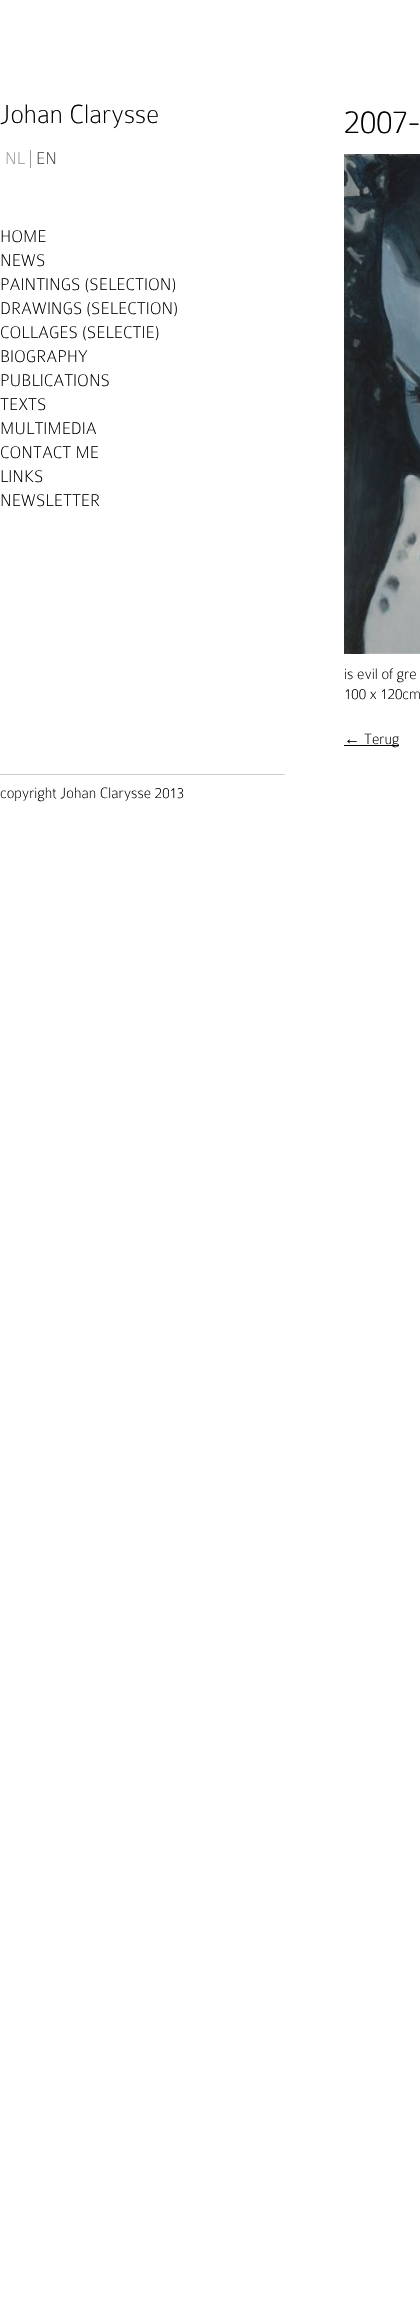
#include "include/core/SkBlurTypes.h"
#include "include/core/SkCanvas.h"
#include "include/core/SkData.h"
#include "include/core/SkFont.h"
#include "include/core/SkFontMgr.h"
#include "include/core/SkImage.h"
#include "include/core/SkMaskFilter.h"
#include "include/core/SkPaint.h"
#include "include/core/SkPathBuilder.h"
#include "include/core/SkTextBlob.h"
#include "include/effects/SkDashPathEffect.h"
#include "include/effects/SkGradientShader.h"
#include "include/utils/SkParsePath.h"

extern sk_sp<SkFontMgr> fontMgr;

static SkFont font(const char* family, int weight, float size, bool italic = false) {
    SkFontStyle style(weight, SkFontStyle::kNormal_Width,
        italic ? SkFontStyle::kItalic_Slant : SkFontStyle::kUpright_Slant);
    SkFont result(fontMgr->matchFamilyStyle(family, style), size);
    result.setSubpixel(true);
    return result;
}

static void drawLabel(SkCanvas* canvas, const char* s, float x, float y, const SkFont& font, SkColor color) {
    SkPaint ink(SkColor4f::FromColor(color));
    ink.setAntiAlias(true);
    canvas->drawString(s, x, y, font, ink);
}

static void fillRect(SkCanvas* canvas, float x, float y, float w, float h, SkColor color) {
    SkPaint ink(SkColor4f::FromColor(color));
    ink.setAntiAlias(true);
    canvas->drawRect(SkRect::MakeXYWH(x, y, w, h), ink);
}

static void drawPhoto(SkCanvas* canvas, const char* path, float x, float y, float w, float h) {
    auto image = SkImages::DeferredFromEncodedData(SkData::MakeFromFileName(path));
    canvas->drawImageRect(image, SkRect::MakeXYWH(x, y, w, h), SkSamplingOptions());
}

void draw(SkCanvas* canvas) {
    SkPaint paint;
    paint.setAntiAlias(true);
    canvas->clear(0xFFFFFFFF);
    SkFont font1 = font("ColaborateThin", 100, 28);
    drawLabel(canvas, "Johan Clarysse", 0, 123, font1, 0xFF000000);
    fillRect(canvas, 30, 150, 1, 18, 0xFF999999);
    SkFont font2 = font("ColaborateThin", 100, 18);
    drawLabel(canvas, "NL", 5, 164, font2, 0xFF999999);
    drawLabel(canvas, "EN", 36, 164, font2, 0xFF444444);
    drawLabel(canvas, "HOME", 0, 242, font2, 0xFF000000);
    drawLabel(canvas, "NEWS", 0, 266, font2, 0xFF000000);
    drawLabel(canvas, "PAINTINGS (SELECTION)", 0, 290, font2, 0xFF000000);
    drawLabel(canvas, "DRAWINGS (SELECTION)", 0, 314, font2, 0xFF000000);
    drawLabel(canvas, "COLLAGES (SELECTIE)", 0, 338, font2, 0xFF000000);
    drawLabel(canvas, "BIOGRAPHY", 0, 362, font2, 0xFF000000);
    drawLabel(canvas, "PUBLICATIONS", 0, 386, font2, 0xFF000000);
    drawLabel(canvas, "TEXTS", 0, 410, font2, 0xFF000000);
    drawLabel(canvas, "MULTIMEDIA", 0, 434, font2, 0xFF000000);
    drawLabel(canvas, "CONTACT ME", 0, 458, font2, 0xFF000000);
    drawLabel(canvas, "LINKS", 0, 482, font2, 0xFF000000);
    drawLabel(canvas, "NEWSLETTER", 0, 506, font2, 0xFF000000);
    SkFont font3 = font("ColaborateThin", 100, 35);
    drawLabel(canvas, "2007-", 344, 133, font3, 0xFF000000);
    drawPhoto(canvas, "assets/img1.png", 344, 154, 76, 500);
    SkFont font4 = font("ColaborateThin", 100, 16);
    drawLabel(canvas, "is evil of gre", 344, 679, font4, 0xFF000000);
    drawLabel(canvas, "100 x 120cm", 344, 699, font4, 0xFF000000);
    SkFont font5 = font("Liberation Sans", 400, 16);
    drawLabel(canvas, "←", 344, 744, font5, 0xFF000000);
    fillRect(canvas, 344, 745, 55, 1, 0xFF000000);
    drawLabel(canvas, "Terug", 364, 744, font4, 0xFF000000);
    fillRect(canvas, 0, 774, 285, 1, 0xFFCCCCCC);
    drawLabel(canvas, "copyright Johan Clarysse 2013", 0, 798, font4, 0xFF000000);
}
